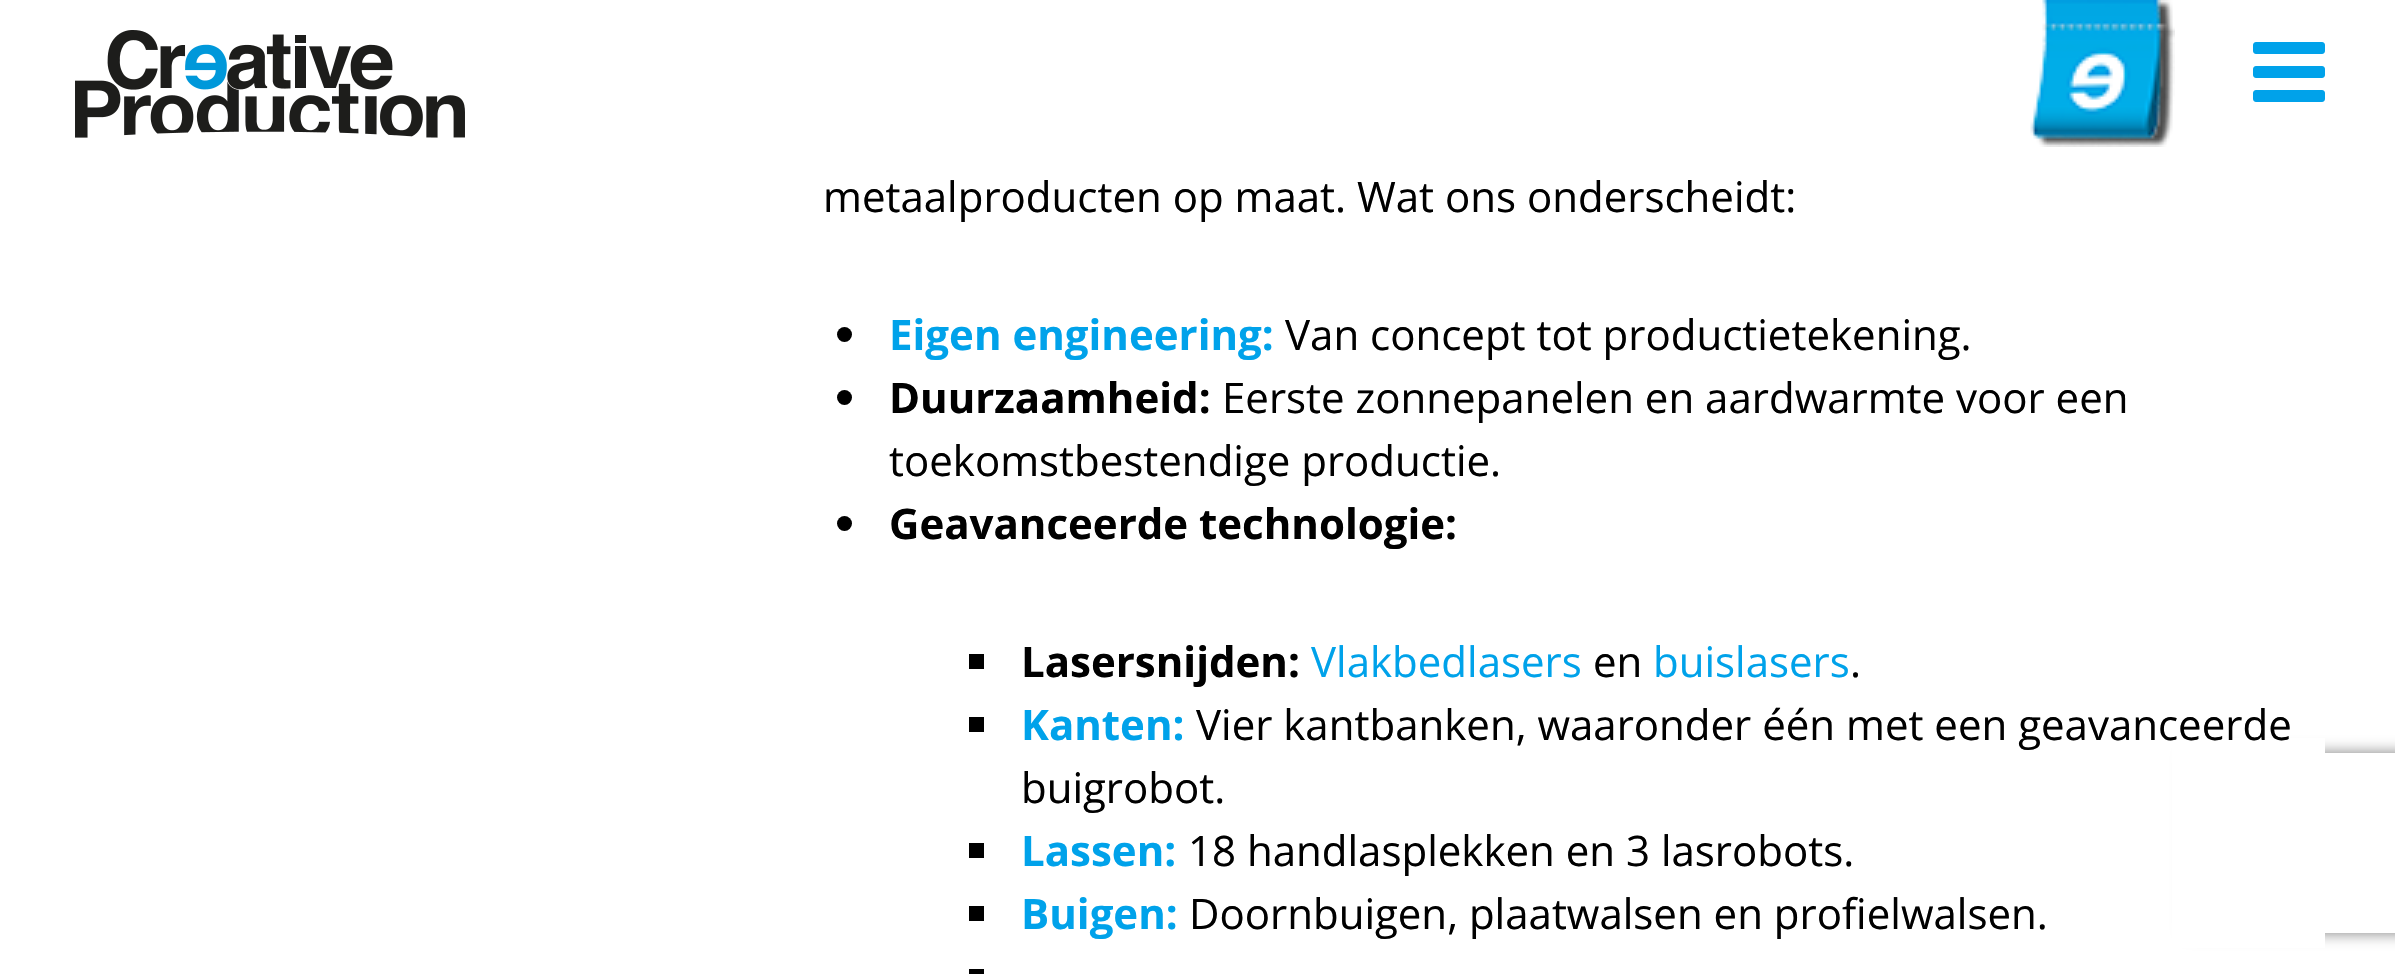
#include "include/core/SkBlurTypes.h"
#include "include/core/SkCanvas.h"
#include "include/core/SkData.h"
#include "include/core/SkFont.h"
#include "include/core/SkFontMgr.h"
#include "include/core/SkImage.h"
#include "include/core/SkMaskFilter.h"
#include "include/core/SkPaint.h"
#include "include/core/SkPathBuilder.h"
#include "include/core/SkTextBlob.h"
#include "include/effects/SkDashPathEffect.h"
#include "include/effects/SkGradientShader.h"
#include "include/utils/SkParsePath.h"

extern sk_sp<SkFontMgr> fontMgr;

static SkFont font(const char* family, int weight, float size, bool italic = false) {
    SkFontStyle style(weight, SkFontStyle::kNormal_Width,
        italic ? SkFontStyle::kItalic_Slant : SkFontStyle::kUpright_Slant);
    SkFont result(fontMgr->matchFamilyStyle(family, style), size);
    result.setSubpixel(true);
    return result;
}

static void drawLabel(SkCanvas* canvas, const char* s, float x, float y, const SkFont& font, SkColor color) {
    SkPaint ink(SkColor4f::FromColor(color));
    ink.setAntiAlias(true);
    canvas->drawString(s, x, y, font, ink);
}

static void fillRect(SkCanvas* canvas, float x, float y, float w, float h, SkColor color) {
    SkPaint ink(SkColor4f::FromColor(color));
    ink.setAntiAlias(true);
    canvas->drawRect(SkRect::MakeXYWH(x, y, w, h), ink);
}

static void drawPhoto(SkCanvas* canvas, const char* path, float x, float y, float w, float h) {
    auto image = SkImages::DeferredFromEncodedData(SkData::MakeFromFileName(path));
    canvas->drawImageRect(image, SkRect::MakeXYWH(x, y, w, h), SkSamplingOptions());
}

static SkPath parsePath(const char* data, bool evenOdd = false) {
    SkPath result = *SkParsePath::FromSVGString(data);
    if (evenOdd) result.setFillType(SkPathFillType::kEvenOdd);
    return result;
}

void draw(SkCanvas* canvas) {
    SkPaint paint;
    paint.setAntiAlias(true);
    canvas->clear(0xFFFFFFFF);
    canvas->save();
    canvas->clipPath(parsePath("M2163 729H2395V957H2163ZM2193 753H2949C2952.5 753 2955 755.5 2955 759V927C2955 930.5 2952.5 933 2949 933H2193C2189.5 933 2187 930.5 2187 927V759C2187 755.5 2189.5 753 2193 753Z", true), true);
    paint.setColor(0xFF808080);
    paint.setMaskFilter(SkMaskFilter::MakeBlur(kNormal_SkBlurStyle, 7.5f));
    canvas->drawRoundRect(SkRect::MakeXYWH(2187, 753, 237, 180), 6, 6, paint);
    paint.setMaskFilter(nullptr);
    canvas->restore();
    fillRect(canvas, 2172, 738, 153, 210, 0xFFFFFFFF);
    drawPhoto(canvas, "assets/img1.png", 75, 30, 390, 108);
    drawPhoto(canvas, "assets/img2.png", 2030, 0, 145, 147);
    drawPhoto(canvas, "assets/img3.png", 2253, 42, 72, 60);
    SkFont font1 = font("Open Sans", 400, 42);
    drawLabel(canvas, "metaalproducten op maat. Wat ons onderscheidt:", 823, 212, font1, 0xFF000000);
    paint.setColor(0xFF000000);
    canvas->drawCircle(844.5f, 334.5f, 7.5f, paint);
    SkFont font2 = font("Open Sans", 700, 42);
    drawLabel(canvas, "Eigen engineering:", 889, 350, font2, 0xFF00A2EA);
    drawLabel(canvas, "Van concept tot productietekening.", 1285, 350, font1, 0xFF000000);
    canvas->drawCircle(844.5f, 397.5f, 7.5f, paint);
    drawLabel(canvas, "Duurzaamheid:", 889, 413, font2, 0xFF000000);
    drawLabel(canvas, "Eerste zonnepanelen en aardwarmte voor een", 1222, 413, font1, 0xFF000000);
    drawLabel(canvas, "toekomstbestendige productie.", 889, 476, font1, 0xFF000000);
    canvas->drawCircle(844.5f, 523.5f, 7.5f, paint);
    drawLabel(canvas, "Geavanceerde technologie:", 889, 539, font2, 0xFF000000);
    fillRect(canvas, 969, 654, 15, 15, 0xFF000000);
    drawLabel(canvas, "Lasersnijden:", 1021, 677, font2, 0xFF000000);
    drawLabel(canvas, "Vlakbedlasers", 1311, 677, font1, 0xFF00A2EA);
    drawLabel(canvas, "en", 1593, 677, font1, 0xFF000000);
    drawLabel(canvas, "buislasers", 1653, 677, font1, 0xFF00A2EA);
    drawLabel(canvas, ".", 1850, 677, font1, 0xFF000000);
    fillRect(canvas, 969, 717, 15, 15, 0xFF000000);
    drawLabel(canvas, "Kanten:", 1021, 740, font2, 0xFF00A2EA);
    drawLabel(canvas, "Vier kantbanken, waaronder één met een geavanceerde", 1196, 740, font1, 0xFF000000);
    drawLabel(canvas, "buigrobot.", 1021, 803, font1, 0xFF000000);
    fillRect(canvas, 969, 843, 15, 15, 0xFF000000);
    drawLabel(canvas, "Lassen:", 1021, 866, font2, 0xFF00A2EA);
    drawLabel(canvas, "18 handlasplekken en 3 lasrobots.", 1188, 866, font1, 0xFF000000);
    fillRect(canvas, 969, 906, 15, 15, 0xFF000000);
    drawLabel(canvas, "Buigen:", 1021, 929, font2, 0xFF00A2EA);
    drawLabel(canvas, "Doornbuigen, plaatwalsen en profielwalsen.", 1189, 929, font1, 0xFF000000);
    fillRect(canvas, 969, 969, 15, 5, 0xFF000000);
}
